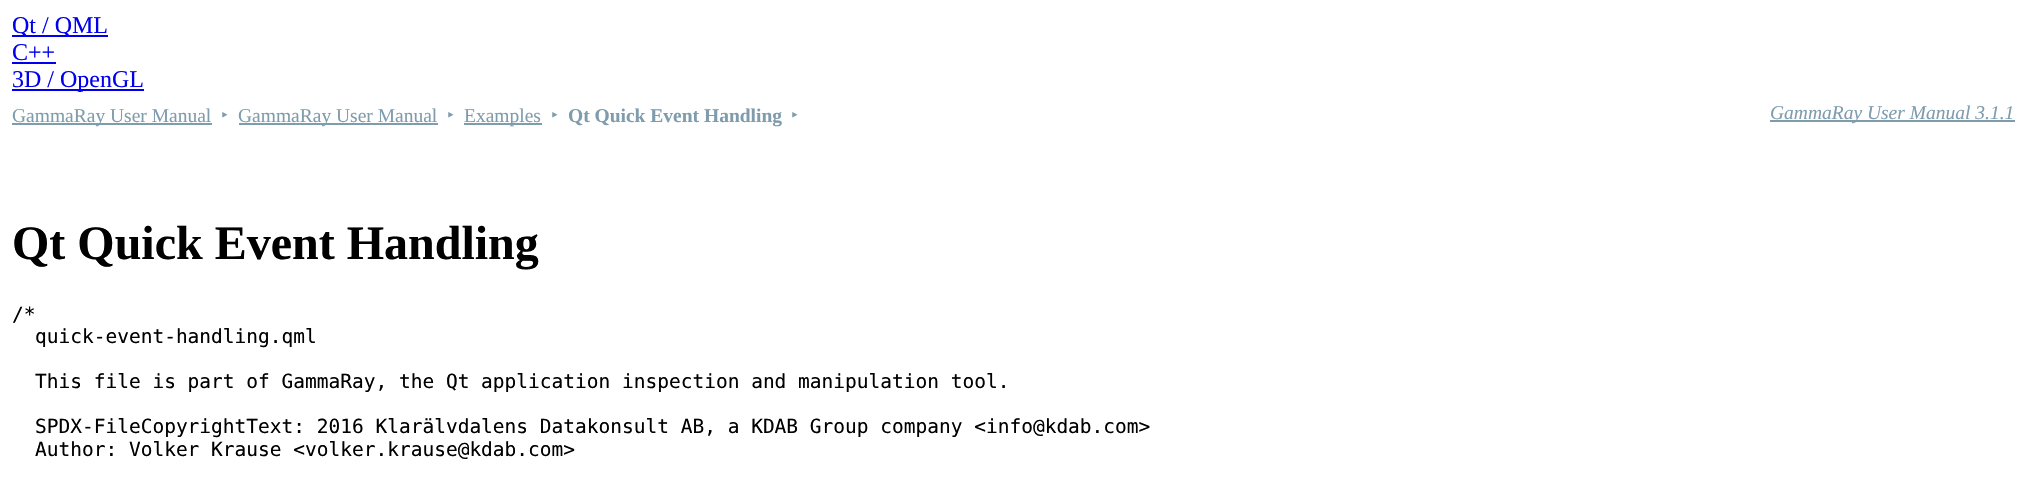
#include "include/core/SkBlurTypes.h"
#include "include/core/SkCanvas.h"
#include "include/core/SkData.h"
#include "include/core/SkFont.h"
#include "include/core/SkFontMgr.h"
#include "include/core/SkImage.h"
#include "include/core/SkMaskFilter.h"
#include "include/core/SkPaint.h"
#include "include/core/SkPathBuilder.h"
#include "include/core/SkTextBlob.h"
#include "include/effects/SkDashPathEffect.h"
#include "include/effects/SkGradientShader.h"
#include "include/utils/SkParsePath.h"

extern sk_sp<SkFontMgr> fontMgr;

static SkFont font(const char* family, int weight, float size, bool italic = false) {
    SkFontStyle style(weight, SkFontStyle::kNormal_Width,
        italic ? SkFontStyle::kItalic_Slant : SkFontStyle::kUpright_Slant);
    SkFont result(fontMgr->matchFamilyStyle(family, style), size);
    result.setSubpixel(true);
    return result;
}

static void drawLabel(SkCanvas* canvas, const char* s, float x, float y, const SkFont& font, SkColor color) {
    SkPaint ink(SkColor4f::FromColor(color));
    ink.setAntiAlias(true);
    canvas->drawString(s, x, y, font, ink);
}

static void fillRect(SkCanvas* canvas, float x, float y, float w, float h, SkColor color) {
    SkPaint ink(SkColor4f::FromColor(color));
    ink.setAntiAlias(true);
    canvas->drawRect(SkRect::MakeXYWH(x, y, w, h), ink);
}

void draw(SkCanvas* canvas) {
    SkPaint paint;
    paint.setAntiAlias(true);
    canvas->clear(0xFFFFFFFF);
    fillRect(canvas, 12, 35, 96, 2, 0xFF0000EE);
    SkFont font1 = font("Liberation Serif", 400, 24);
    drawLabel(canvas, "Qt / QML", 12, 33, font1, 0xFF0000EE);
    drawLabel(canvas, "C++", 12, 60, font1, 0xFF0000EE);
    fillRect(canvas, 12, 62, 44, 2, 0xFF0000EE);
    fillRect(canvas, 12, 89, 132, 2, 0xFF0000EE);
    drawLabel(canvas, "3D / OpenGL", 12, 87, font1, 0xFF0000EE);
    fillRect(canvas, 12, 123, 200, 2, 0xFF7F9CAD);
    SkFont font2 = font("Liberation Serif", 400, 19.5f);
    drawLabel(canvas, "GammaRay User Manual", 12, 122, font2, 0xFF7F9CAD);
    SkFont font3 = font("Noto Sans", 400, 19.5f);
    drawLabel(canvas, "‣", 221, 122, font3, 0xFF7F9CAD);
    fillRect(canvas, 239, 123, 199, 2, 0xFF7F9CAD);
    drawLabel(canvas, "GammaRay User Manual", 238, 122, font2, 0xFF7F9CAD);
    drawLabel(canvas, "‣", 447, 122, font3, 0xFF7F9CAD);
    fillRect(canvas, 464, 123, 78, 2, 0xFF7F9CAD);
    drawLabel(canvas, "Examples", 464, 122, font2, 0xFF7F9CAD);
    drawLabel(canvas, "‣", 551, 122, font3, 0xFF7F9CAD);
    SkFont font4 = font("Liberation Serif", 700, 19.5f);
    drawLabel(canvas, "Qt Quick Event Handling", 568, 122, font4, 0xFF7F9CAD);
    drawLabel(canvas, "‣", 791, 122, font3, 0xFF7F9CAD);
    fillRect(canvas, 1770, 120, 245, 2, 0xFF7F9CAD);
    SkFont font5 = font("Liberation Serif", 400, 19.5f, true);
    drawLabel(canvas, "GammaRay User Manual 3.1.1", 1770, 119, font5, 0xFF7F9CAD);
    SkFont font6 = font("Liberation Serif", 700, 48);
    drawLabel(canvas, "Qt Quick Event Handling", 12, 259, font6, 0xFF000000);
    SkFont font7 = font("DejaVu Sans Mono", 400, 19.5f);
    drawLabel(canvas, "/*", 12, 321, font7, 0xFF000000);
    drawLabel(canvas, "quick-event-handling.qml", 35, 343, font7, 0xFF000000);
    drawLabel(canvas, "This file is part of GammaRay, the Qt application inspection and manipulation tool.", 35, 388, font7, 0xFF000000);
    drawLabel(canvas, "SPDX-FileCopyrightText: 2016 Klarälvdalens Datakonsult AB, a KDAB Group company <info@kdab.com>", 35, 433, font7, 0xFF000000);
    drawLabel(canvas, "Author: Volker Krause <volker.krause@kdab.com>", 35, 456, font7, 0xFF000000);
}
